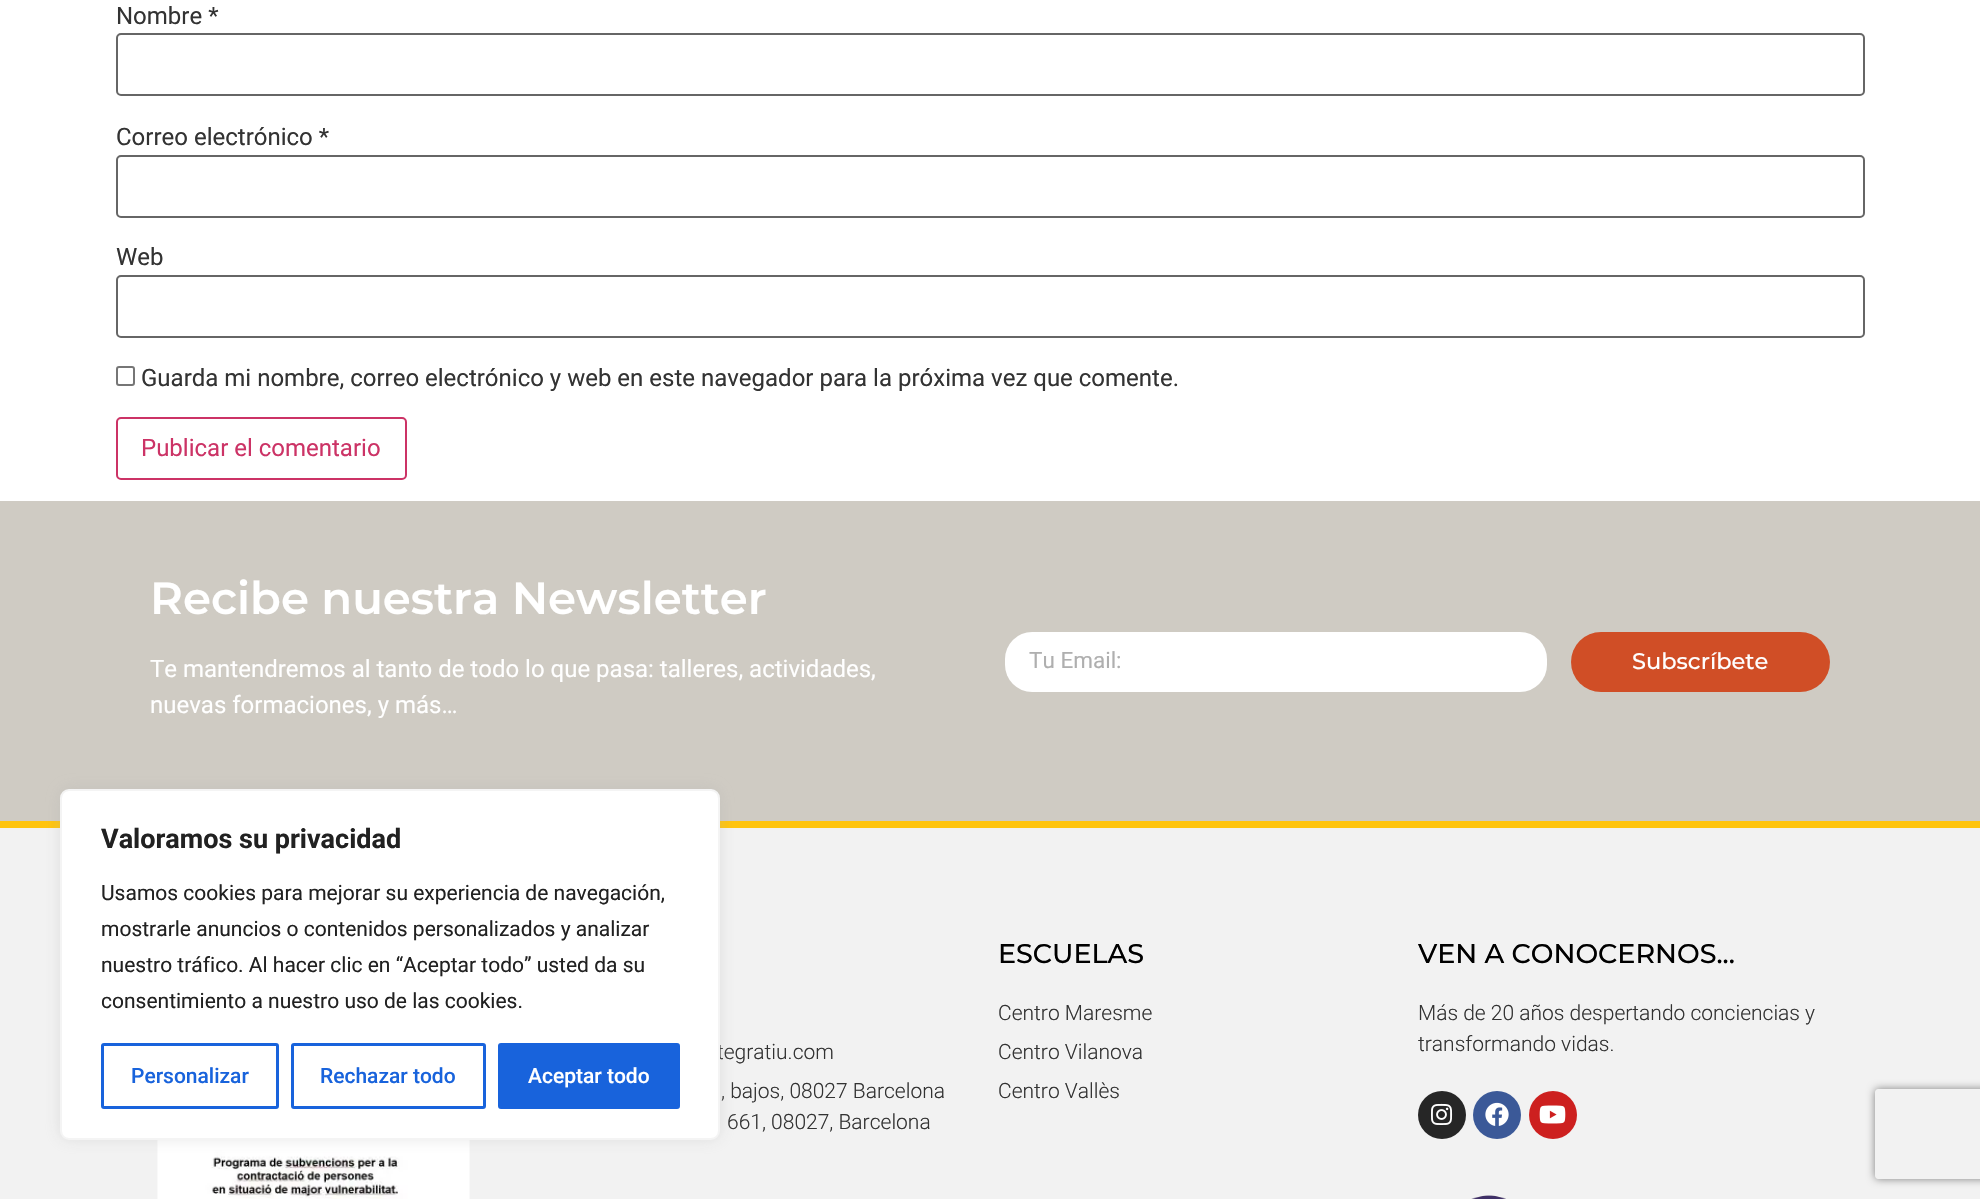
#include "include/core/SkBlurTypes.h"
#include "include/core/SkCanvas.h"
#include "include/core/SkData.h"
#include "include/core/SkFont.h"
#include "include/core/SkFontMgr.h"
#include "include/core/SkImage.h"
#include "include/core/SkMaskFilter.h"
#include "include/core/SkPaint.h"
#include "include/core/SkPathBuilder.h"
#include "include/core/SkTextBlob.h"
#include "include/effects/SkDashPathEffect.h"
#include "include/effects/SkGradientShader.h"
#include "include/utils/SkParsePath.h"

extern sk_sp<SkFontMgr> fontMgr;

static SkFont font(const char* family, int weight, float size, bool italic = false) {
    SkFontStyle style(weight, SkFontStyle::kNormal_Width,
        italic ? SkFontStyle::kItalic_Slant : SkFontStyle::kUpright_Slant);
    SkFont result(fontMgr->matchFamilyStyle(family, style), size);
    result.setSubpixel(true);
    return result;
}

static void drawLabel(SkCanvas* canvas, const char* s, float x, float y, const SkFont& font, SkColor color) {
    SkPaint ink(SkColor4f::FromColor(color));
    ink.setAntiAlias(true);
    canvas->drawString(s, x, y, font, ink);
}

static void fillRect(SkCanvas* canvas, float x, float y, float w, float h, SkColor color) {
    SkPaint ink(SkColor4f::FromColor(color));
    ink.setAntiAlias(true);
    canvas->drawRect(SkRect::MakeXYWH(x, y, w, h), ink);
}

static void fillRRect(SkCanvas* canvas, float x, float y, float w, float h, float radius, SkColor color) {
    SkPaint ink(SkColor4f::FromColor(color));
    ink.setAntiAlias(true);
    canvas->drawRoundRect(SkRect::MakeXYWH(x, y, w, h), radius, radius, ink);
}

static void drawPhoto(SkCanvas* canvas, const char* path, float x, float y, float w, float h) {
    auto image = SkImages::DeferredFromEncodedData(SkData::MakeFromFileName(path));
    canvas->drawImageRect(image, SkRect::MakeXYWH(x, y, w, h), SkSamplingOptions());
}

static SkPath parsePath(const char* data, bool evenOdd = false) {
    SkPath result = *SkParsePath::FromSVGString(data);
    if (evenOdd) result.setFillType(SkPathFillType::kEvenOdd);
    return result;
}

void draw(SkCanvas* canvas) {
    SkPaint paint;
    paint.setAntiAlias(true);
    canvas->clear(0xFFFFFFFF);
    SkFont font1 = font("Roboto", 400, 24);
    drawLabel(canvas, "Nombre *", 116, 24, font1, 0xFF333333);
    paint.setStroke(true);
    paint.setStrokeWidth(2);
    paint.setColor(0xFF666666);
    canvas->drawRoundRect(SkRect::MakeXYWH(117, 34, 1747, 61), 4, 4, paint);
    drawLabel(canvas, "Correo electrónico *", 116, 145, font1, 0xFF333333);
    canvas->drawRoundRect(SkRect::MakeXYWH(117, 156, 1747, 61), 4, 4, paint);
    drawLabel(canvas, "Web", 116, 265, font1, 0xFF333333);
    canvas->drawRoundRect(SkRect::MakeXYWH(117, 276, 1747, 61), 4, 4, paint);
    paint.setColor(0xFF767676);
    canvas->drawRoundRect(SkRect::MakeXYWH(117, 367, 17, 18), 2, 2, paint);
    drawLabel(canvas, "Guarda mi nombre, correo electrónico y web en este navegador para la próxima vez que comente.", 141, 386, font1, 0xFF333333);
    paint.setColor(0xFFCC3366);
    canvas->drawRoundRect(SkRect::MakeXYWH(117, 418, 289, 61), 4, 4, paint);
    drawLabel(canvas, "Publicar el comentario", 141, 456, font1, 0xFFCC3366);
    fillRect(canvas, 0, 501, 1980, 320, 0xFFCFCBC3);
    SkFont font2 = font("Montserrat", 600, 45);
    drawLabel(canvas, "Recibe nuestra Newsletter", 150, 614, font2, 0xFFFFFFFF);
    drawLabel(canvas, "Te mantendremos al tanto de todo lo que pasa: talleres, actividades,", 150, 677, font1, 0xFFFFFFFF);
    drawLabel(canvas, "nuevas formaciones, y más…", 150, 713, font1, 0xFFFFFFFF);
    fillRRect(canvas, 1005, 632, 542, 60, 27, 0xFFFFFFFF);
    SkFont font3 = font("Roboto", 400, 22.5f);
    drawLabel(canvas, "Tu Email:", 1029, 668, font3, 0xFFAFAFAF);
    fillRRect(canvas, 1571, 632, 259, 60, 30, 0xFFD04E26);
    SkFont font4 = font("Montserrat", 500, 22.5f);
    drawLabel(canvas, "Subscríbete", 1632, 669, font4, 0xFFFFFFFF);
    fillRect(canvas, 0, 828, 1980, 371, 0xFFF2F2F2);
    fillRect(canvas, 0, 821, 1980, 7, 0xFFFFC40E);
    SkFont font5 = font("Montserrat", 500, 27);
    drawLabel(canvas, "ESCUELAS", 998, 963, font5, 0xFF000000);
    SkFont font6 = font("Roboto", 300, 21);
    drawLabel(canvas, "Centro Maresme", 998, 1020, font6, 0xFF333333);
    drawLabel(canvas, "Centro Vilanova", 998, 1059, font6, 0xFF333333);
    drawLabel(canvas, "Centro Vallès", 998, 1098, font6, 0xFF333333);
    drawLabel(canvas, "VEN A CONOCERNOS...", 1418, 963, font5, 0xFF000000);
    drawLabel(canvas, "Más de 20 años despertando conciencias y", 1418, 1020, font6, 0xFF333333);
    drawLabel(canvas, "transformando vidas.", 1418, 1051, font6, 0xFF333333);
    paint.setStroke(false);
    paint.setColor(0xFF262626);
    canvas->drawCircle(1442, 1115, 24, paint);
    drawPhoto(canvas, "assets/img1.png", 1431, 1103, 22, 22);
    paint.setColor(0xFF3B5998);
    canvas->drawCircle(1497, 1115, 24, paint);
    drawPhoto(canvas, "assets/img2.png", 1485, 1102, 24, 24);
    paint.setColor(0xFFCD201F);
    canvas->drawCircle(1553, 1115, 24, paint);
    drawPhoto(canvas, "assets/img3.png", 1539, 1105, 27, 19);
    drawPhoto(canvas, "assets/img4.png", 1471, 1195, 35, 4);
    drawLabel(canvas, "tegratiu.com", 717, 1059, font6, 0xFF333333);
    drawLabel(canvas, ", bajos, 08027 Barcelona", 721, 1098, font6, 0xFF333333);
    drawLabel(canvas, "661, 08027, Barcelona", 727, 1129, font6, 0xFF333333);
    drawPhoto(canvas, "assets/img5.png", 157, 1140, 313, 59);
    paint.setColor(0x4DACABAB);
    paint.setMaskFilter(SkMaskFilter::MakeBlur(kNormal_SkBlurStyle, 7.5f));
    canvas->drawRoundRect(SkRect::MakeXYWH(60, 788, 660, 351), 9, 9, paint);
    paint.setMaskFilter(nullptr);
    paint.setColor(0xFFFFFFFF);
    canvas->drawRoundRect(SkRect::MakeXYWH(61, 790, 658, 349), 8, 8, paint);
    paint.setStroke(true);
    paint.setColor(0xFFF4F4F4);
    canvas->drawRoundRect(SkRect::MakeXYWH(61, 790, 658, 349), 8, 8, paint);
    SkFont font7 = font("Roboto", 700, 27);
    drawLabel(canvas, "Valoramos su privacidad", 101, 848, font7, 0xFF212121);
    SkFont font8 = font("Roboto", 400, 21);
    drawLabel(canvas, "Usamos cookies para mejorar su experiencia de navegación,", 101, 900, font8, 0xFF212121);
    drawLabel(canvas, "mostrarle anuncios o contenidos personalizados y analizar", 101, 936, font8, 0xFF212121);
    drawLabel(canvas, "nuestro tráfico. Al hacer clic en “Aceptar todo” usted da su", 101, 972, font8, 0xFF212121);
    drawLabel(canvas, "consentimiento a nuestro uso de las cookies.", 101, 1008, font8, 0xFF212121);
    paint.setStrokeWidth(3);
    paint.setColor(0xFF1863DC);
    canvas->drawRoundRect(SkRect::MakeXYWH(102.5f, 1044.5f, 175, 63), 1.5f, 1.5f, paint);
    SkFont font9 = font("Roboto", 500, 21);
    drawLabel(canvas, "Personalizar", 131, 1083, font9, 0xFF1863DC);
    canvas->drawRoundRect(SkRect::MakeXYWH(292.5f, 1044.5f, 192, 63), 1.5f, 1.5f, paint);
    drawLabel(canvas, "Rechazar todo", 320, 1083, font9, 0xFF1863DC);
    paint.setStroke(false);
    canvas->drawRoundRect(SkRect::MakeXYWH(499.5f, 1044.5f, 179, 63), 1.5f, 1.5f, paint);
    paint.setStroke(true);
    canvas->drawRoundRect(SkRect::MakeXYWH(499.5f, 1044.5f, 179, 63), 1.5f, 1.5f, paint);
    drawLabel(canvas, "Aceptar todo", 528, 1083, font9, 0xFFFFFFFF);
    canvas->save();
    canvas->clipPath(parsePath("M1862 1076H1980V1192H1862ZM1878 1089H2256C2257.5 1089 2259 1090.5 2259 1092V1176C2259 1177.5 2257.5 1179 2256 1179H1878C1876.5 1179 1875 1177.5 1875 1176V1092C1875 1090.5 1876.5 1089 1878 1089Z", true), true);
    paint.setStroke(false);
    paint.setColor(0xFF808080);
    paint.setMaskFilter(SkMaskFilter::MakeBlur(kNormal_SkBlurStyle, 4));
    canvas->drawRoundRect(SkRect::MakeXYWH(1875, 1089, 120, 90), 3, 3, paint);
    paint.setMaskFilter(nullptr);
    canvas->restore();
}
